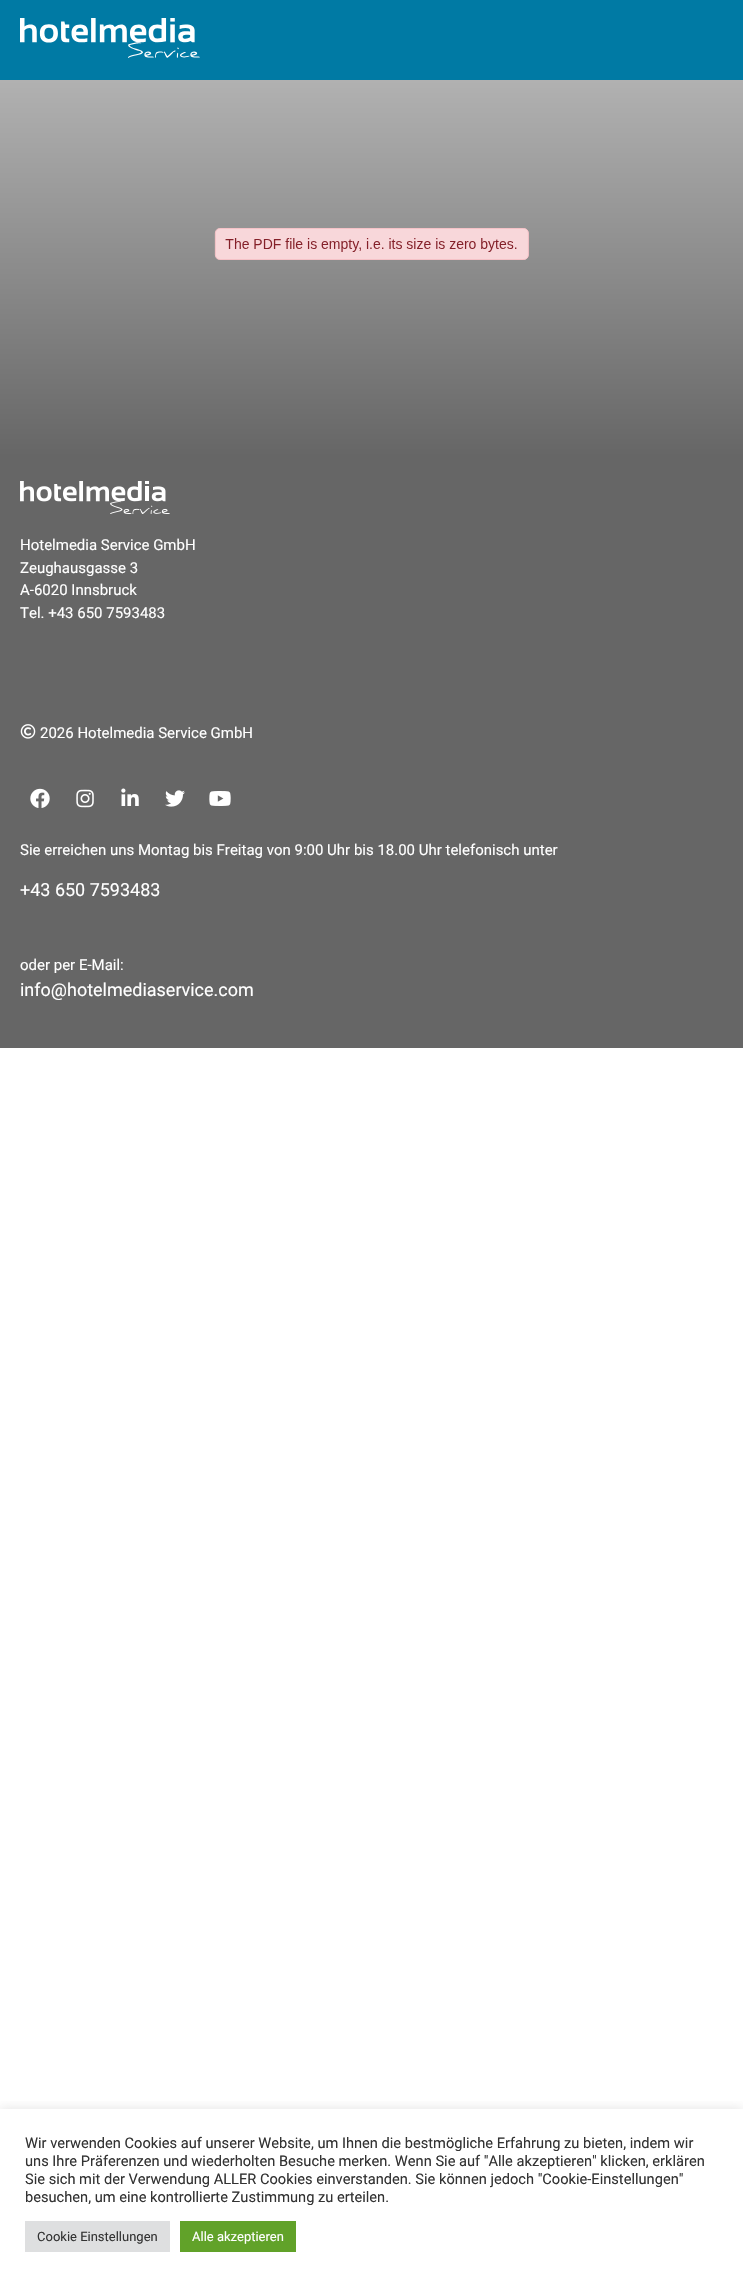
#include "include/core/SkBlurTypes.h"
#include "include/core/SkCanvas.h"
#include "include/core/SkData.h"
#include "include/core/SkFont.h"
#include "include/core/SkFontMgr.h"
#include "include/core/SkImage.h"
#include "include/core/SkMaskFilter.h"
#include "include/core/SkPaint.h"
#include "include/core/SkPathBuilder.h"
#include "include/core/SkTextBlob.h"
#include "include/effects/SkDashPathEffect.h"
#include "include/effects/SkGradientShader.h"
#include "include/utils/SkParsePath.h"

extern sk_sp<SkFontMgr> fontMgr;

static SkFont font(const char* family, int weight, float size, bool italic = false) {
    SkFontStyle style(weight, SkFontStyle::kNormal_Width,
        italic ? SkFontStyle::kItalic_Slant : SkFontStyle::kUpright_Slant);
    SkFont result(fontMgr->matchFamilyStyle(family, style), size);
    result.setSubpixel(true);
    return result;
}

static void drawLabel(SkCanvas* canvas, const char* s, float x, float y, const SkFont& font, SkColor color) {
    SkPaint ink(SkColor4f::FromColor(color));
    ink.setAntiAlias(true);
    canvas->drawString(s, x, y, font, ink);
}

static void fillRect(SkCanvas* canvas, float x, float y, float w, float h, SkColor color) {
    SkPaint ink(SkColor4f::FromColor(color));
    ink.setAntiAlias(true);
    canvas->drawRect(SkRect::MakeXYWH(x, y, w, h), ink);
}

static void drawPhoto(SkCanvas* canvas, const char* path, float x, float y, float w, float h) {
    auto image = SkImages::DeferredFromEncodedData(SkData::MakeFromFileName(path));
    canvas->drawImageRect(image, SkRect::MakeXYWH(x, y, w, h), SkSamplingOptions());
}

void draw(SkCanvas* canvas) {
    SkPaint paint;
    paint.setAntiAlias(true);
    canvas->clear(0xFFFFFFFF);
    fillRect(canvas, 0, 0, 743, 80, 0xFF007AA4);
    drawPhoto(canvas, "assets/img1.png", 20, 18, 180, 40);
    {
        const SkColor colors[] = {0xFFB1B1B1, 0xFF666666};
        const float stops[] = {0, 1};
        const SkPoint ends[] = {{372, 80}, {372, 457}};
        paint.setShader(SkGradientShader::MakeLinear(ends, colors, stops, 2, SkTileMode::kClamp));
        paint.setAlpha(255);
    }
    canvas->drawRect(SkRect::MakeXYWH(0, 80, 743, 377), paint);
    drawPhoto(canvas, "assets/img2.png", 214, 228, 315, 32);
    fillRect(canvas, 0, 457, 743, 591, 0xFF666666);
    drawPhoto(canvas, "assets/img3.png", 20, 481, 150, 33);
    SkFont font1 = font("Roboto", 400, 15);
    drawLabel(canvas, "Hotelmedia Service GmbH", 20, 550, font1, 0xFFFFFFFF);
    drawLabel(canvas, "Zeughausgasse 3", 20, 573, font1, 0xFFFFFFFF);
    drawLabel(canvas, "A-6020 Innsbruck", 20, 595, font1, 0xFFFFFFFF);
    drawLabel(canvas, "Tel. +43 650 7593483", 20, 618, font1, 0xFFFFFFFF);
    drawPhoto(canvas, "assets/img4.png", 20, 724, 16, 15);
    drawLabel(canvas, "2026 Hotelmedia Service GmbH", 40, 738, font1, 0xFFFFFFFF);
    drawPhoto(canvas, "assets/img5.png", 30, 788, 20, 20);
    drawPhoto(canvas, "assets/img6.png", 76, 789, 18, 19);
    drawPhoto(canvas, "assets/img7.png", 121, 788, 18, 18);
    drawPhoto(canvas, "assets/img8.png", 165, 790, 20, 17);
    drawPhoto(canvas, "assets/img9.png", 209, 791, 22, 15);
    drawLabel(canvas, "Sie erreichen uns Montag bis Freitag von 9:00 Uhr bis 18.00 Uhr telefonisch unter", 20, 855, font1, 0xFFFFFFFF);
    SkFont font2 = font("Roboto", 400, 18);
    drawLabel(canvas, "+43 650 7593483", 20, 896, font2, 0xFFFFFFFF);
    drawLabel(canvas, "oder per E-Mail:", 20, 970, font1, 0xFFFFFFFF);
    drawLabel(canvas, "info@hotelmediaservice.com", 20, 996, font2, 0xFFFFFFFF);
    canvas->save();
    canvas->clipRect(SkRect::MakeXYWH(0, 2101, 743, 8));
    paint.setShader(nullptr);
    paint.setColor(0x4DACABAB);
    paint.setMaskFilter(SkMaskFilter::MakeBlur(kNormal_SkBlurStyle, 5));
    canvas->drawRect(SkRect::MakeXYWH(0, 2108, 743, 173), paint);
    paint.setMaskFilter(nullptr);
    canvas->restore();
    SkFont font3 = font("Roboto", 400, 14.65f);
    drawLabel(canvas, "Wir verwenden Cookies auf unserer Website, um Ihnen die bestmögliche Erfahrung zu bieten, indem wir", 25, 2148, font3, 0xFF333333);
    drawLabel(canvas, "uns Ihre Präferenzen und wiederholten Besuche merken. Wenn Sie auf \"Alle akzeptieren\" klicken, erklären", 25, 2166, font3, 0xFF333333);
    drawLabel(canvas, "Sie sich mit der Verwendung ALLER Cookies einverstanden. Sie können jedoch \"Cookie-Einstellungen\"", 25, 2184, font3, 0xFF333333);
    drawLabel(canvas, "besuchen, um eine kontrollierte Zustimmung zu erteilen.", 25, 2202, font3, 0xFF333333);
    fillRect(canvas, 25, 2221, 145, 31, 0xFFDEDFE0);
    SkFont font4 = font("Roboto", 400, 13);
    drawLabel(canvas, "Cookie Einstellungen", 37, 2241, font4, 0xFF333333);
    fillRect(canvas, 180, 2221, 116, 31, 0xFF61A229);
    drawLabel(canvas, "Alle akzeptieren", 192, 2241, font4, 0xFFFFFFFF);
}
